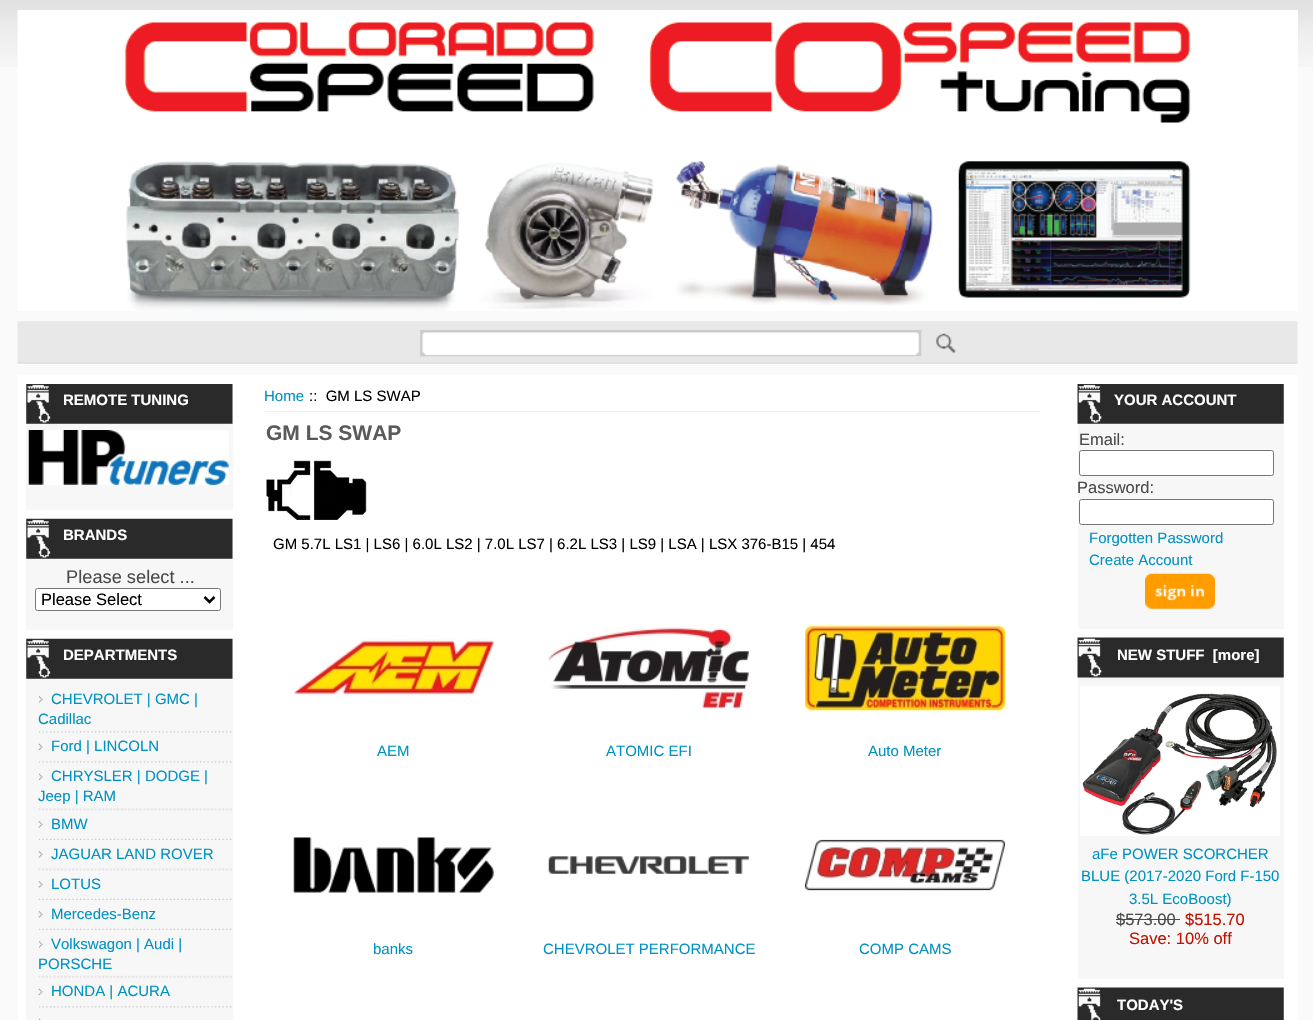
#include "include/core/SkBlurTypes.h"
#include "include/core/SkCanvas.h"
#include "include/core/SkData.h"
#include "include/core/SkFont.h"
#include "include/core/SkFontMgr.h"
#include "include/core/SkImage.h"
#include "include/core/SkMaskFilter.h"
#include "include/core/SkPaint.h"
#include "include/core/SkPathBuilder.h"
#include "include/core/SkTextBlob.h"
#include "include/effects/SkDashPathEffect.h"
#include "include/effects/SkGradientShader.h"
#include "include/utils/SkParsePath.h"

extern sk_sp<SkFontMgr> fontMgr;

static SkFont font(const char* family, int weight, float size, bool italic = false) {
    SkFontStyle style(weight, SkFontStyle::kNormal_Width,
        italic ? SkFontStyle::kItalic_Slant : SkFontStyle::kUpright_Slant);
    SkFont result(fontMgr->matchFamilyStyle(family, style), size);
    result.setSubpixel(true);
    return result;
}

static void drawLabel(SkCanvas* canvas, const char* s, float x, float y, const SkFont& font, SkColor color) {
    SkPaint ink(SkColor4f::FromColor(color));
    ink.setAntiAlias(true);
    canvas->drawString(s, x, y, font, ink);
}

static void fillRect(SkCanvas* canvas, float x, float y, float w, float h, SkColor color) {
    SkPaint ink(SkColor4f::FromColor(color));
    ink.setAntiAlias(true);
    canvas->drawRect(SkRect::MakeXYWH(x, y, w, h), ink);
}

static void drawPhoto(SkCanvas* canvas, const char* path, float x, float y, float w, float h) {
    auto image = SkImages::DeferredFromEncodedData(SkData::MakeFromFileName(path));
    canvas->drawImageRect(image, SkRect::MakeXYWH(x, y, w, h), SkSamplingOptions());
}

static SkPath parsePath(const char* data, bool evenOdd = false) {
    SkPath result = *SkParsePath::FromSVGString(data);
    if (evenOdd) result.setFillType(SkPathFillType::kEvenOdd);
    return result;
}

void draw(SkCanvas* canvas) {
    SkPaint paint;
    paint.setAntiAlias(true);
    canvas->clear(0xFFFAFAFA);
    drawPhoto(canvas, "assets/img1.png", 0, 0, 1313, 67);
    drawPhoto(canvas, "assets/img2.png", 17, 10, 1281, 301);
    drawPhoto(canvas, "assets/img3.png", 17, 321, 1281, 44);
    drawPhoto(canvas, "assets/img4.png", 420, 330, 502, 27);
    drawPhoto(canvas, "assets/img5.png", 930, 330, 29, 26);
    fillRect(canvas, 18, 375, 1280, 645, 0xFFFFFFFF);
    fillRect(canvas, 26, 424, 207, 86, 0xFFF7F7F7);
    fillRect(canvas, 26, 384, 207, 40, 0xFFF3F3F3);
    drawPhoto(canvas, "assets/img6.png", 26, 384, 207, 40);
    SkFont font1 = font("Liberation Sans", 700, 15);
    drawLabel(canvas, "REMOTE TUNING", 63, 405, font1, 0xFFFFFFFF);
    drawPhoto(canvas, "assets/img7.png", 28, 430, 201, 55);
    fillRect(canvas, 26, 559, 207, 71, 0xFFF7F7F7);
    fillRect(canvas, 26, 519, 207, 40, 0xFFF3F3F3);
    drawPhoto(canvas, "assets/img8.png", 26, 518, 207, 41);
    drawLabel(canvas, "BRANDS", 63, 540, font1, 0xFFFFFFFF);
    SkFont font2 = font("Liberation Sans", 400, 18.25f);
    drawLabel(canvas, "Please select ...", 66, 583, font2, 0xFF4B4B4B);
    paint.setColor(0xFFFFFFFF);
    canvas->drawRoundRect(SkRect::MakeXYWH(35.5f, 588.5f, 185, 22), 2, 2, paint);
    paint.setStroke(true);
    paint.setStrokeWidth(1);
    paint.setColor(0xFF767676);
    canvas->drawRoundRect(SkRect::MakeXYWH(35.5f, 588.5f, 185, 22), 2, 2, paint);
    paint.setStrokeWidth(2.5f);
    paint.setColor(0xFF000000);
    canvas->drawPath(parsePath("M204.5 597L209.5 602L214.5 597"), paint);
    SkFont font3 = font("Liberation Sans", 400, 16.5f);
    drawLabel(canvas, "Please Select", 41, 605, font3, 0xFF000000);
    fillRect(canvas, 26, 679, 207, 341, 0xFFF7F7F7);
    fillRect(canvas, 26, 639, 207, 40, 0xFFF3F3F3);
    drawPhoto(canvas, "assets/img8.png", 26, 638, 207, 41);
    drawLabel(canvas, "DEPARTMENTS", 63, 660, font1, 0xFFFFFFFF);
    drawPhoto(canvas, "assets/img9.png", 39, 731, 193, 2);
    drawPhoto(canvas, "assets/img10.png", 39, 696, 4, 7);
    SkFont font4 = font("Liberation Sans", 400, 15);
    drawLabel(canvas, "CHEVROLET | GMC |", 51, 704, font4, 0xFF0092C2);
    drawLabel(canvas, "Cadillac", 38, 724, font4, 0xFF0092C2);
    drawPhoto(canvas, "assets/img9.png", 39, 761, 193, 2);
    drawPhoto(canvas, "assets/img11.png", 38, 743, 5, 7);
    drawLabel(canvas, "Ford | LINCOLN", 51, 751, font4, 0xFF0092C2);
    drawPhoto(canvas, "assets/img12.png", 38, 808, 194, 3);
    drawPhoto(canvas, "assets/img13.png", 39, 773, 4, 7);
    drawLabel(canvas, "CHRYSLER | DODGE |", 51, 781, font4, 0xFF0092C2);
    drawLabel(canvas, "Jeep | RAM", 38, 801, font4, 0xFF0092C2);
    drawPhoto(canvas, "assets/img14.png", 39, 838, 193, 2);
    drawPhoto(canvas, "assets/img15.png", 38, 821, 5, 7);
    drawLabel(canvas, "BMW", 51, 829, font4, 0xFF0092C2);
    drawPhoto(canvas, "assets/img12.png", 38, 868, 194, 3);
    drawPhoto(canvas, "assets/img15.png", 38, 851, 5, 7);
    drawLabel(canvas, "JAGUAR LAND ROVER", 51, 859, font4, 0xFF0092C2);
    drawPhoto(canvas, "assets/img16.png", 39, 898, 193, 2);
    drawPhoto(canvas, "assets/img15.png", 38, 881, 5, 7);
    drawLabel(canvas, "LOTUS", 51, 889, font4, 0xFF0092C2);
    drawPhoto(canvas, "assets/img14.png", 39, 928, 193, 2);
    drawPhoto(canvas, "assets/img15.png", 38, 911, 5, 7);
    drawLabel(canvas, "Mercedes-Benz", 51, 919, font4, 0xFF0092C2);
    drawPhoto(canvas, "assets/img17.png", 38, 975, 194, 3);
    drawPhoto(canvas, "assets/img10.png", 39, 941, 4, 7);
    drawLabel(canvas, "Volkswagon | Audi |", 51, 949, font4, 0xFF0092C2);
    drawLabel(canvas, "PORSCHE", 38, 969, font4, 0xFF0092C2);
    drawPhoto(canvas, "assets/img9.png", 39, 1006, 193, 2);
    drawPhoto(canvas, "assets/img11.png", 38, 988, 5, 7);
    drawLabel(canvas, "HONDA | ACURA", 51, 996, font4, 0xFF0092C2);
    drawPhoto(canvas, "assets/img18.png", 39, 1018, 2, 2);
    fillRect(canvas, 265, 411, 775, 1, 0xFFF0F0F0);
    drawLabel(canvas, "Home", 264, 401, font4, 0xFF0092C2);
    drawLabel(canvas, "::  GM LS SWAP", 309, 401, font4, 0xFF000000);
    SkFont font5 = font("Liberation Sans", 700, 21);
    drawLabel(canvas, "GM LS SWAP", 266, 440, font5, 0xFF5A5A5A);
    drawPhoto(canvas, "assets/img19.png", 266, 460, 101, 60);
    drawLabel(canvas, "GM 5.7L LS1 | LS6 | 6.0L LS2 | 7.0L LS7 | 6.2L LS3 | LS9 | LSA | LSX 376-B15 | 454", 273, 549, font4, 0xFF000000);
    drawPhoto(canvas, "assets/img20.png", 293, 639, 201, 57);
    drawLabel(canvas, "AEM", 377, 756, font4, 0xFF0092C2);
    drawPhoto(canvas, "assets/img21.png", 548, 626, 201, 83);
    drawLabel(canvas, "ATOMIC EFI", 606, 756, font4, 0xFF0092C2);
    drawPhoto(canvas, "assets/img22.png", 805, 623, 200, 89);
    drawLabel(canvas, "Auto Meter", 868, 756, font4, 0xFF0092C2);
    drawPhoto(canvas, "assets/img23.png", 293, 837, 201, 56);
    drawLabel(canvas, "banks", 373, 954, font4, 0xFF0092C2);
    drawPhoto(canvas, "assets/img24.png", 548, 856, 201, 18);
    drawLabel(canvas, "CHEVROLET PERFORMANCE", 543, 954, font4, 0xFF0092C2);
    drawPhoto(canvas, "assets/img25.png", 805, 839, 200, 52);
    drawLabel(canvas, "COMP CAMS", 859, 954, font4, 0xFF0092C2);
    fillRect(canvas, 1078, 424, 206, 205, 0xFFF7F7F7);
    fillRect(canvas, 1078, 384, 206, 40, 0xFFF3F3F3);
    drawPhoto(canvas, "assets/img26.png", 1077, 384, 207, 40);
    drawLabel(canvas, "YOUR ACCOUNT", 1114, 405, font1, 0xFFFFFFFF);
    drawLabel(canvas, "Email:", 1079, 445, font3, 0xFF4B4B4B);
    paint.setStroke(false);
    paint.setColor(0xFFFFFFFF);
    canvas->drawRoundRect(SkRect::MakeXYWH(1079.5f, 450.5f, 194, 25), 2, 2, paint);
    paint.setStroke(true);
    paint.setStrokeWidth(1);
    paint.setColor(0xFF767676);
    canvas->drawRoundRect(SkRect::MakeXYWH(1079.5f, 450.5f, 194, 25), 2, 2, paint);
    drawLabel(canvas, "Password:", 1077, 493, font3, 0xFF4B4B4B);
    paint.setStroke(false);
    paint.setColor(0xFFFFFFFF);
    canvas->drawRoundRect(SkRect::MakeXYWH(1079.5f, 499.5f, 194, 25), 2, 2, paint);
    paint.setStroke(true);
    paint.setColor(0xFF767676);
    canvas->drawRoundRect(SkRect::MakeXYWH(1079.5f, 499.5f, 194, 25), 2, 2, paint);
    drawLabel(canvas, "Forgotten Password", 1089, 543, font4, 0xFF0092C2);
    drawLabel(canvas, "Create Account", 1089, 565, font4, 0xFF0092C2);
    drawPhoto(canvas, "assets/img27.png", 1145, 573, 70, 36);
    fillRect(canvas, 1078, 680, 206, 299, 0xFFF7F7F7);
    fillRect(canvas, 1078, 638, 206, 42, 0xFFF3F3F3);
    drawPhoto(canvas, "assets/img28.png", 1077, 637, 207, 41);
    drawLabel(canvas, "NEW STUFF  [more]", 1117, 660, font1, 0xFFFFFFFF);
    drawPhoto(canvas, "assets/img29.png", 1080, 686, 200, 150);
    drawLabel(canvas, "aFe POWER SCORCHER", 1092, 859, font4, 0xFF0092C2);
    drawLabel(canvas, "BLUE (2017-2020 Ford F-150", 1081, 881, font4, 0xFF0092C2);
    drawLabel(canvas, "3.5L EcoBoost)", 1129, 904, font4, 0xFF0092C2);
    drawLabel(canvas, "$573.00", 1116, 925, font3, 0xFF4B4B4B);
    fillRect(canvas, 1116, 919, 64, 1, 0xFF4B4B4B);
    drawLabel(canvas, "$515.70", 1185, 925, font3, 0xFFC41200);
    drawLabel(canvas, "Save: 10% off", 1129, 944, font3, 0xFFC41200);
    drawPhoto(canvas, "assets/img30.png", 1077, 987, 207, 33);
    drawLabel(canvas, "TODAY'S", 1117, 1010, font1, 0xFFFFFFFF);
}
